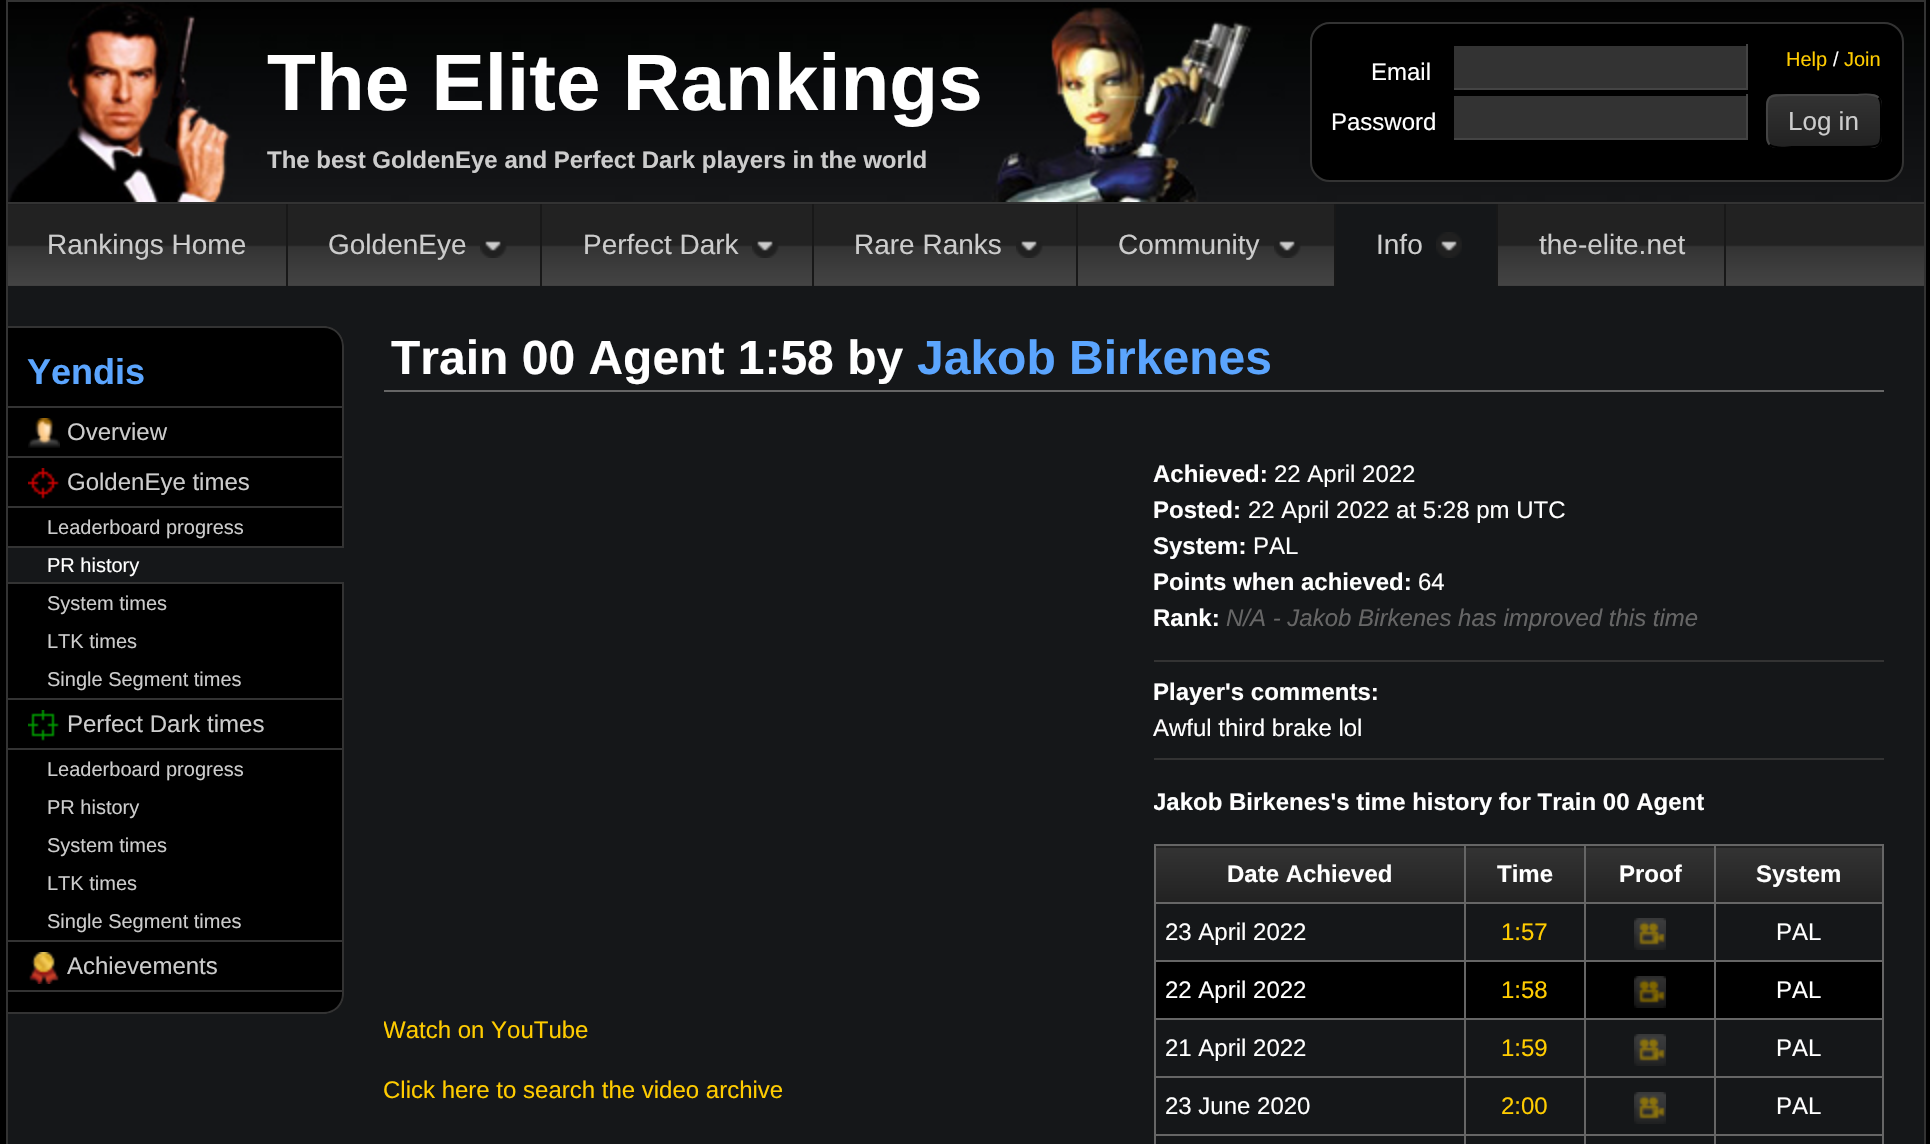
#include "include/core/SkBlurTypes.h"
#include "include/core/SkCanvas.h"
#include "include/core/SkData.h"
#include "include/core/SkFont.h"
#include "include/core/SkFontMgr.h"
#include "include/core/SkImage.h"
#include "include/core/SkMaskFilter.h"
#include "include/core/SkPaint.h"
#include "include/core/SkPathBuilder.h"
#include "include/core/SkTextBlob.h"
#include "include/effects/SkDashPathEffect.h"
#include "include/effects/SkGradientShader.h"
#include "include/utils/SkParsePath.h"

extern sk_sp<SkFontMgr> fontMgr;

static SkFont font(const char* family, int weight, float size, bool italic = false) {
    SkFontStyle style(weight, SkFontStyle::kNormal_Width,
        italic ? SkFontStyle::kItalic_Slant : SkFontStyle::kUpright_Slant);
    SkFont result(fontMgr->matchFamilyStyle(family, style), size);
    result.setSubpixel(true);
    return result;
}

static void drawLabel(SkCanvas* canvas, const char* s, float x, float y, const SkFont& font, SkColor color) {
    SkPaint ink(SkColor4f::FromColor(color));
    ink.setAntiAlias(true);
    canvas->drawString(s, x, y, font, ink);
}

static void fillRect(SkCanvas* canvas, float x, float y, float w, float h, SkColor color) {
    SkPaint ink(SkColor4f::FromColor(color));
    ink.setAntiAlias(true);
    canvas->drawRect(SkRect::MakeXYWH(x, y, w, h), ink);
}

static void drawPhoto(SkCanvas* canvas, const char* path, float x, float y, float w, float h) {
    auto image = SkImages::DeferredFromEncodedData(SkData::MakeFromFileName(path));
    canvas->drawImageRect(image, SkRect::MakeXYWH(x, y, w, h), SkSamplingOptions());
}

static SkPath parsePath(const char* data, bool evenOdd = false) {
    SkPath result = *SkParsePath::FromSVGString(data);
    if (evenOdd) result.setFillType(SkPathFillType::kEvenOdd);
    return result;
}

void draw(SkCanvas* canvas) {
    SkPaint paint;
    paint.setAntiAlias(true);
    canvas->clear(0xFF000000);
    fillRect(canvas, 8, 286, 1916, 858, 0xFF151719);
    paint.setStroke(true);
    paint.setStrokeWidth(2);
    paint.setColor(0xFF333333);
    canvas->drawRect(SkRect::MakeXYWH(7, 1, 1918, 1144), paint);
    drawPhoto(canvas, "assets/img1.png", 8, 2, 1916, 200);
    SkFont font1 = font("Liberation Sans", 700, 80);
    drawLabel(canvas, "The Elite Rankings", 267, 110, font1, 0xFFFFFFFF);
    SkFont font2 = font("Liberation Sans", 700, 24);
    drawLabel(canvas, "The best GoldenEye and Perfect Dark players in the world", 267, 168, font2, 0xFFCCCCCC);
    paint.setStroke(false);
    paint.setColor(0xFF000000);
    canvas->drawRoundRect(SkRect::MakeXYWH(1311, 23, 592, 158), 19, 19, paint);
    paint.setStroke(true);
    paint.setColor(0xFF333333);
    canvas->drawRoundRect(SkRect::MakeXYWH(1311, 23, 592, 158), 19, 19, paint);
    SkFont font3 = font("Liberation Sans", 400, 24);
    drawLabel(canvas, "Email", 1371, 80, font3, 0xFFFFFFFF);
    fillRect(canvas, 1454, 46, 292, 42, 0xFF333333);
    fillRect(canvas, 1746, 44, 2, 46, 0xFF444444);
    fillRect(canvas, 1452, 88, 296, 2, 0xFF444444);
    fillRect(canvas, 1452, 88, 2, 2, 0xFF000000);
    SkFont font4 = font("Liberation Sans", 400, 20);
    drawLabel(canvas, "Help", 1786, 66, font4, 0xFFFFCC00);
    drawLabel(canvas, "/", 1833, 66, font4, 0xFFFFFFFF);
    drawLabel(canvas, "Join", 1844, 66, font4, 0xFFFFCC00);
    drawLabel(canvas, "Password", 1331, 130, font3, 0xFFFFFFFF);
    fillRect(canvas, 1454, 96, 292, 42, 0xFF333333);
    fillRect(canvas, 1746, 94, 2, 46, 0xFF444444);
    fillRect(canvas, 1452, 138, 296, 2, 0xFF444444);
    fillRect(canvas, 1452, 138, 2, 2, 0xFF000000);
    canvas->save();
    canvas->clipPath(parsePath("M1776 94H1872C1877.5 94 1882 98.5 1882 104V138C1882 143.5 1877.5 148 1872 148H1776C1770.5 148 1766 143.5 1766 138V104C1766 98.5 1770.5 94 1776 94Z"), true);
    paint.setStroke(false);
    {
        const SkColor colors[] = {0xFF333333, 0xFF222222};
        const float stops[] = {0, 1};
        const SkPoint ends[] = {{1824, 46}, {1824, 96}};
        paint.setShader(SkGradientShader::MakeLinear(ends, colors, stops, 2, SkTileMode::kClamp));
        paint.setAlpha(255);
    }
    canvas->drawRect(SkRect::MakeXYWH(1766, 94, 116, 2), paint);
    {
        const SkColor colors[] = {0xFF333333, 0xFF222222};
        const float stops[] = {0, 1};
        const SkPoint ends[] = {{1824, 96}, {1824, 146}};
        paint.setShader(SkGradientShader::MakeLinear(ends, colors, stops, 2, SkTileMode::kClamp));
        paint.setAlpha(255);
    }
    canvas->drawRect(SkRect::MakeXYWH(1766, 96, 116, 50), paint);
    {
        const SkColor colors[] = {0xFF333333, 0xFF222222};
        const float stops[] = {0, 1};
        const SkPoint ends[] = {{1824, 146}, {1824, 196}};
        paint.setShader(SkGradientShader::MakeLinear(ends, colors, stops, 2, SkTileMode::kClamp));
        paint.setAlpha(255);
    }
    canvas->drawRect(SkRect::MakeXYWH(1766, 146, 116, 2), paint);
    canvas->restore();
    paint.setStroke(true);
    paint.setShader(nullptr);
    paint.setColor(0xFF000000);
    canvas->drawPath(parsePath("M1878.5 97.5C1881.5 101 1881 105.5 1881 109.5V121C1881 148 1883.5 147 1856 147H1792C1787.5 147 1775 149.5 1769.5 144.5"), paint);
    paint.setColor(0xFF444444);
    canvas->drawPath(parsePath("M1769.5 144.5C1766.5 141 1767 136.5 1767 132.5V121C1767 94 1764.5 95 1792 95H1856C1860.5 95 1873 92.5 1878.5 97.5"), paint);
    SkFont font5 = font("Liberation Sans", 400, 26);
    drawLabel(canvas, "Log in", 1788, 130, font5, 0xFFCCCCCC);
    drawPhoto(canvas, "assets/img2.png", 8, 204, 1916, 82);
    fillRect(canvas, 8, 202, 1916, 2, 0xFF333333);
    fillRect(canvas, 286, 204, 2, 82, 0xFF181818);
    SkFont font6 = font("Liberation Sans", 400, 28);
    drawLabel(canvas, "Rankings Home", 47, 254, font6, 0xFFCCCCCC);
    drawPhoto(canvas, "assets/img3.png", 480, 241, 27, 17);
    fillRect(canvas, 540, 204, 2, 82, 0xFF181818);
    drawLabel(canvas, "GoldenEye", 328, 254, font6, 0xFFCCCCCC);
    drawPhoto(canvas, "assets/img3.png", 752, 241, 27, 17);
    fillRect(canvas, 812, 204, 2, 82, 0xFF181818);
    drawLabel(canvas, "Perfect Dark", 583, 254, font6, 0xFFCCCCCC);
    drawPhoto(canvas, "assets/img3.png", 1016, 241, 27, 17);
    fillRect(canvas, 1076, 204, 2, 82, 0xFF181818);
    drawLabel(canvas, "Rare Ranks", 854, 254, font6, 0xFFCCCCCC);
    drawPhoto(canvas, "assets/img3.png", 1274, 241, 27, 17);
    fillRect(canvas, 1334, 204, 2, 82, 0xFF181818);
    drawLabel(canvas, "Community", 1118, 254, font6, 0xFFCCCCCC);
    fillRect(canvas, 1336, 204, 160, 82, 0xFF151719);
    drawPhoto(canvas, "assets/img4.png", 1436, 232, 26, 26);
    fillRect(canvas, 1496, 204, 2, 82, 0xFF181818);
    drawLabel(canvas, "Info", 1376, 254, font6, 0xFFCCCCCC);
    fillRect(canvas, 1724, 204, 2, 82, 0xFF181818);
    drawLabel(canvas, "the-elite.net", 1539, 254, font6, 0xFFCCCCCC);
    paint.setStroke(false);
    paint.setColor(0xFF000000);
    canvas->drawPath(parsePath("M8 326H324C335 326 344 335 344 346V994C344 1005 335 1014 324 1014H8Z"), paint);
    paint.setColor(0xFF333333);
    canvas->drawPath(parsePath("M8 326H324C335 326 344 335 344 346V994C344 1005 335 1014 324 1014H8ZM8 328H324C334 328 342 336 342 346V994C342 1004 334 1012 324 1012H8Z", true), paint);
    SkFont font7 = font("Liberation Sans", 700, 36);
    drawLabel(canvas, "Yendis", 27, 384, font7, 0xFF5BA5FE);
    fillRect(canvas, 8, 406, 334, 2, 0xFF333333);
    drawPhoto(canvas, "assets/img5.png", 28, 418, 32, 30);
    fillRect(canvas, 8, 456, 334, 2, 0xFF333333);
    drawLabel(canvas, "Overview", 67, 440, font3, 0xFFCCCCCC);
    drawPhoto(canvas, "assets/img6.png", 28, 468, 31, 31);
    fillRect(canvas, 8, 506, 334, 2, 0xFF333333);
    drawLabel(canvas, "GoldenEye times", 67, 490, font3, 0xFFCCCCCC);
    drawLabel(canvas, "Leaderboard progress", 47, 534, font4, 0xFFCCCCCC);
    fillRect(canvas, 8, 548, 336, 34, 0xFF151719);
    fillRect(canvas, 8, 546, 336, 2, 0xFF333333);
    fillRect(canvas, 8, 582, 336, 2, 0xFF333333);
    drawLabel(canvas, "PR history", 47, 572, font4, 0xFFFFFFFF);
    drawLabel(canvas, "System times", 47, 610, font4, 0xFFCCCCCC);
    drawLabel(canvas, "LTK times", 47, 648, font4, 0xFFCCCCCC);
    fillRect(canvas, 8, 698, 334, 2, 0xFF333333);
    drawLabel(canvas, "Single Segment times", 47, 686, font4, 0xFFCCCCCC);
    drawPhoto(canvas, "assets/img7.png", 28, 710, 31, 31);
    fillRect(canvas, 8, 748, 334, 2, 0xFF333333);
    drawLabel(canvas, "Perfect Dark times", 67, 732, font3, 0xFFCCCCCC);
    drawLabel(canvas, "Leaderboard progress", 47, 776, font4, 0xFFCCCCCC);
    drawLabel(canvas, "PR history", 47, 814, font4, 0xFFCCCCCC);
    drawLabel(canvas, "System times", 47, 852, font4, 0xFFCCCCCC);
    drawLabel(canvas, "LTK times", 47, 890, font4, 0xFFCCCCCC);
    fillRect(canvas, 8, 940, 334, 2, 0xFF333333);
    drawLabel(canvas, "Single Segment times", 47, 928, font4, 0xFFCCCCCC);
    drawPhoto(canvas, "assets/img8.png", 29, 952, 30, 32);
    fillRect(canvas, 8, 990, 334, 2, 0xFF333333);
    drawLabel(canvas, "Achievements", 67, 974, font3, 0xFFCCCCCC);
    fillRect(canvas, 384, 390, 1500, 2, 0xFF666666);
    SkFont font8 = font("Liberation Sans", 700, 48);
    drawLabel(canvas, "Train 00 Agent 1:58 by", 391, 374, font8, 0xFFFFFFFF);
    drawLabel(canvas, "Jakob Birkenes", 917, 374, font8, 0xFF5BA5FE);
    canvas->save();
    canvas->clipRect(SkRect::MakeXYWH(384, 432, 730, 700));
    drawLabel(canvas, "Watch on YouTube", 383, 1038, font3, 0xFFFFCC00);
    canvas->restore();
    drawLabel(canvas, "Click here to search the video archive", 383, 1098, font3, 0xFFFFCC00);
    drawLabel(canvas, "Achieved:", 1153, 482, font2, 0xFFFFFFFF);
    drawLabel(canvas, "22 April 2022", 1274, 482, font3, 0xFFFFFFFF);
    drawLabel(canvas, "Posted:", 1153, 518, font2, 0xFFFFFFFF);
    drawLabel(canvas, "22 April 2022 at 5:28 pm UTC", 1248, 518, font3, 0xFFFFFFFF);
    drawLabel(canvas, "System:", 1153, 554, font2, 0xFFFFFFFF);
    drawLabel(canvas, "PAL", 1253, 554, font3, 0xFFFFFFFF);
    drawLabel(canvas, "Points when achieved:", 1153, 590, font2, 0xFFFFFFFF);
    drawLabel(canvas, "64", 1418, 590, font3, 0xFFFFFFFF);
    drawLabel(canvas, "Rank:", 1153, 626, font2, 0xFFFFFFFF);
    SkFont font9 = font("Liberation Sans", 400, 24, true);
    drawLabel(canvas, "N/A - Jakob Birkenes has improved this time", 1226, 626, font9, 0xFF666666);
    fillRect(canvas, 1154, 660, 730, 2, 0xFF333333);
    drawLabel(canvas, "Player's comments:", 1153, 700, font2, 0xFFFFFFFF);
    drawLabel(canvas, "Awful third brake lol", 1153, 736, font3, 0xFFFFFFFF);
    fillRect(canvas, 1154, 758, 730, 2, 0xFF333333);
    canvas->save();
    canvas->clipRect(SkRect::MakeXYWH(1154, 432, 730, 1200));
    drawLabel(canvas, "Jakob Birkenes's time history for Train 00 Agent", 1153, 810, font2, 0xFFFFFFFF);
    canvas->restore();
    {
        const SkColor colors[] = {0xFF333333, 0xFF222222};
        const float stops[] = {0, 1};
        const SkPoint ends[] = {{1309, 794}, {1309, 848}};
        paint.setShader(SkGradientShader::MakeLinear(ends, colors, stops, 2, SkTileMode::kClamp));
        paint.setAlpha(255);
    }
    canvas->drawRect(SkRect::MakeXYWH(1154, 846, 310, 2), paint);
    {
        const SkColor colors[] = {0xFF333333, 0xFF222222};
        const float stops[] = {0, 1};
        const SkPoint ends[] = {{1309, 848}, {1309, 902}};
        paint.setShader(SkGradientShader::MakeLinear(ends, colors, stops, 2, SkTileMode::kClamp));
        paint.setAlpha(255);
    }
    canvas->drawRect(SkRect::MakeXYWH(1156, 848, 308, 54), paint);
    fillRect(canvas, 1714, 844, 170, 2, 0xFF666666);
    {
        const SkColor colors[] = {0xFF333333, 0xFF222222};
        const float stops[] = {0, 1};
        const SkPoint ends[] = {{1651, 794}, {1651, 848}};
        paint.setShader(SkGradientShader::MakeLinear(ends, colors, stops, 2, SkTileMode::kClamp));
        paint.setAlpha(255);
    }
    canvas->drawRect(SkRect::MakeXYWH(1586, 846, 130, 2), paint);
    fillRect(canvas, 1714, 902, 170, 2, 0xFF666666);
    fillRect(canvas, 1714, 960, 170, 2, 0xFF666666);
    fillRect(canvas, 1156, 962, 726, 56, 0xFF000000);
    fillRect(canvas, 1714, 1018, 170, 2, 0xFF666666);
    fillRect(canvas, 1714, 1076, 170, 2, 0xFF666666);
    fillRect(canvas, 1714, 1134, 170, 2, 0xFF666666);
    fillRect(canvas, 1714, 1134, 2, 10, 0xFF666666);
    fillRect(canvas, 1584, 1134, 132, 2, 0xFF666666);
    fillRect(canvas, 1714, 1076, 2, 60, 0xFF666666);
    fillRect(canvas, 1584, 1076, 132, 2, 0xFF666666);
    fillRect(canvas, 1714, 1018, 2, 60, 0xFF666666);
    fillRect(canvas, 1584, 1018, 132, 2, 0xFF666666);
    fillRect(canvas, 1714, 960, 2, 60, 0xFF666666);
    fillRect(canvas, 1584, 960, 132, 2, 0xFF666666);
    fillRect(canvas, 1714, 902, 2, 60, 0xFF666666);
    fillRect(canvas, 1584, 902, 132, 2, 0xFF666666);
    fillRect(canvas, 1714, 844, 2, 60, 0xFF666666);
    fillRect(canvas, 1584, 844, 132, 2, 0xFF666666);
    {
        const SkColor colors[] = {0xFF333333, 0xFF222222};
        const float stops[] = {0, 1};
        const SkPoint ends[] = {{1525, 794}, {1525, 848}};
        paint.setShader(SkGradientShader::MakeLinear(ends, colors, stops, 2, SkTileMode::kClamp));
        paint.setAlpha(255);
    }
    canvas->drawRect(SkRect::MakeXYWH(1464, 846, 122, 2), paint);
    fillRect(canvas, 1584, 1134, 2, 10, 0xFF666666);
    fillRect(canvas, 1464, 1134, 122, 2, 0xFF666666);
    fillRect(canvas, 1584, 1076, 2, 60, 0xFF666666);
    fillRect(canvas, 1464, 1076, 122, 2, 0xFF666666);
    fillRect(canvas, 1584, 1018, 2, 60, 0xFF666666);
    fillRect(canvas, 1464, 1018, 122, 2, 0xFF666666);
    fillRect(canvas, 1584, 960, 2, 60, 0xFF666666);
    fillRect(canvas, 1464, 960, 122, 2, 0xFF666666);
    fillRect(canvas, 1584, 902, 2, 60, 0xFF666666);
    fillRect(canvas, 1464, 902, 122, 2, 0xFF666666);
    fillRect(canvas, 1584, 844, 2, 60, 0xFF666666);
    fillRect(canvas, 1464, 844, 122, 2, 0xFF666666);
    fillRect(canvas, 1464, 1134, 2, 10, 0xFF666666);
    fillRect(canvas, 1154, 1134, 312, 2, 0xFF666666);
    fillRect(canvas, 1464, 1076, 2, 60, 0xFF666666);
    fillRect(canvas, 1154, 1076, 312, 2, 0xFF666666);
    fillRect(canvas, 1464, 1018, 2, 60, 0xFF666666);
    fillRect(canvas, 1154, 1018, 312, 2, 0xFF666666);
    fillRect(canvas, 1464, 960, 2, 60, 0xFF666666);
    fillRect(canvas, 1154, 960, 312, 2, 0xFF666666);
    fillRect(canvas, 1464, 902, 2, 60, 0xFF666666);
    fillRect(canvas, 1154, 902, 312, 2, 0xFF666666);
    fillRect(canvas, 1464, 844, 2, 60, 0xFF666666);
    fillRect(canvas, 1154, 844, 312, 2, 0xFF666666);
    fillRect(canvas, 1154, 1134, 2, 10, 0xFF666666);
    fillRect(canvas, 1154, 1076, 2, 60, 0xFF666666);
    fillRect(canvas, 1154, 1018, 2, 60, 0xFF666666);
    fillRect(canvas, 1154, 960, 2, 60, 0xFF666666);
    fillRect(canvas, 1154, 902, 2, 60, 0xFF666666);
    fillRect(canvas, 1154, 844, 2, 60, 0xFF666666);
    drawLabel(canvas, "Date Achieved", 1227, 882, font2, 0xFFFFFFFF);
    {
        const SkColor colors[] = {0xFF333333, 0xFF222222};
        const float stops[] = {0, 1};
        const SkPoint ends[] = {{1525, 848}, {1525, 902}};
        paint.setShader(SkGradientShader::MakeLinear(ends, colors, stops, 2, SkTileMode::kClamp));
        paint.setAlpha(255);
    }
    canvas->drawRect(SkRect::MakeXYWH(1466, 848, 118, 54), paint);
    drawLabel(canvas, "Time", 1497, 882, font2, 0xFFFFFFFF);
    {
        const SkColor colors[] = {0xFF333333, 0xFF222222};
        const float stops[] = {0, 1};
        const SkPoint ends[] = {{1651, 848}, {1651, 902}};
        paint.setShader(SkGradientShader::MakeLinear(ends, colors, stops, 2, SkTileMode::kClamp));
        paint.setAlpha(255);
    }
    canvas->drawRect(SkRect::MakeXYWH(1586, 848, 128, 54), paint);
    drawLabel(canvas, "Proof", 1619, 882, font2, 0xFFFFFFFF);
    {
        const SkColor colors[] = {0xFF333333, 0xFF222222};
        const float stops[] = {0, 1};
        const SkPoint ends[] = {{1799, 794}, {1799, 848}};
        paint.setShader(SkGradientShader::MakeLinear(ends, colors, stops, 2, SkTileMode::kClamp));
        paint.setAlpha(255);
    }
    canvas->drawRect(SkRect::MakeXYWH(1716, 846, 166, 2), paint);
    {
        const SkColor colors[] = {0xFF333333, 0xFF222222};
        const float stops[] = {0, 1};
        const SkPoint ends[] = {{1799, 848}, {1799, 902}};
        paint.setShader(SkGradientShader::MakeLinear(ends, colors, stops, 2, SkTileMode::kClamp));
        paint.setAlpha(255);
    }
    canvas->drawRect(SkRect::MakeXYWH(1716, 848, 166, 54), paint);
    fillRect(canvas, 1882, 1134, 2, 10, 0xFF666666);
    fillRect(canvas, 1882, 1076, 2, 60, 0xFF666666);
    fillRect(canvas, 1882, 1018, 2, 60, 0xFF666666);
    fillRect(canvas, 1882, 960, 2, 60, 0xFF666666);
    fillRect(canvas, 1882, 902, 2, 60, 0xFF666666);
    fillRect(canvas, 1882, 844, 2, 60, 0xFF666666);
    drawLabel(canvas, "System", 1756, 882, font2, 0xFFFFFFFF);
    drawLabel(canvas, "23 April 2022", 1165, 940, font3, 0xFFFFFFFF);
    drawLabel(canvas, "1:57", 1501, 940, font3, 0xFFFFCC00);
    drawPhoto(canvas, "assets/img9.png", 1634, 918, 32, 32);
    drawLabel(canvas, "PAL", 1776, 940, font3, 0xFFFFFFFF);
    drawLabel(canvas, "22 April 2022", 1165, 998, font3, 0xFFFFFFFF);
    drawLabel(canvas, "1:58", 1501, 998, font3, 0xFFFFCC00);
    drawPhoto(canvas, "assets/img10.png", 1634, 976, 32, 32);
    drawLabel(canvas, "PAL", 1776, 998, font3, 0xFFFFFFFF);
    drawLabel(canvas, "21 April 2022", 1165, 1056, font3, 0xFFFFFFFF);
    drawLabel(canvas, "1:59", 1501, 1056, font3, 0xFFFFCC00);
    drawPhoto(canvas, "assets/img9.png", 1634, 1034, 32, 32);
    drawLabel(canvas, "PAL", 1776, 1056, font3, 0xFFFFFFFF);
    drawLabel(canvas, "23 June 2020", 1165, 1114, font3, 0xFFFFFFFF);
    drawLabel(canvas, "2:00", 1501, 1114, font3, 0xFFFFCC00);
    drawPhoto(canvas, "assets/img9.png", 1634, 1092, 32, 32);
    drawLabel(canvas, "PAL", 1776, 1114, font3, 0xFFFFFFFF);
}
